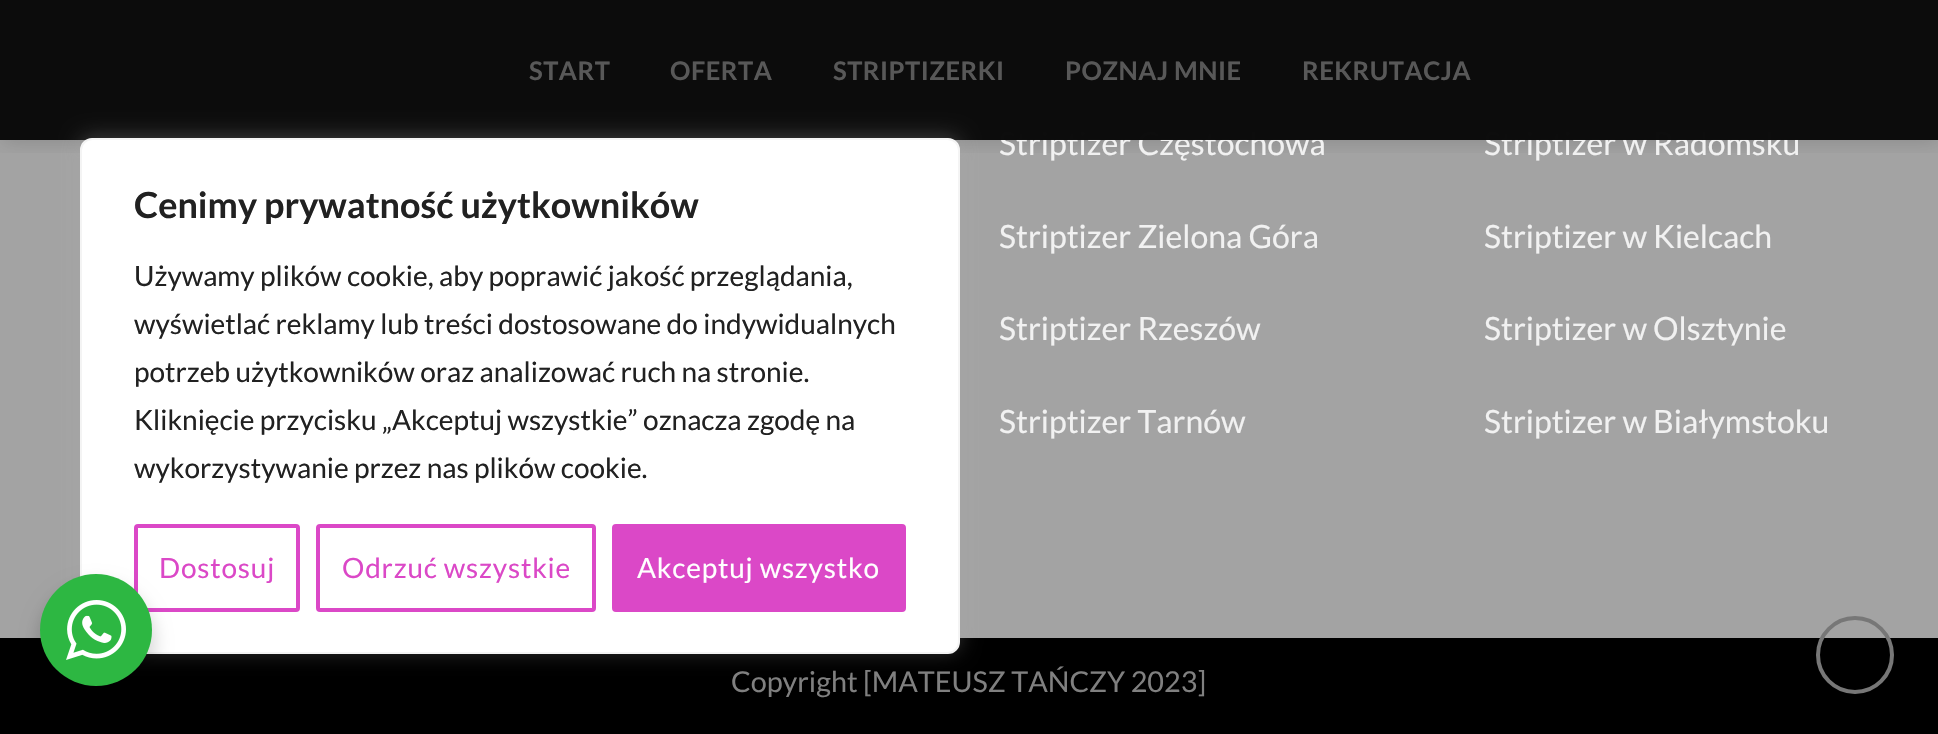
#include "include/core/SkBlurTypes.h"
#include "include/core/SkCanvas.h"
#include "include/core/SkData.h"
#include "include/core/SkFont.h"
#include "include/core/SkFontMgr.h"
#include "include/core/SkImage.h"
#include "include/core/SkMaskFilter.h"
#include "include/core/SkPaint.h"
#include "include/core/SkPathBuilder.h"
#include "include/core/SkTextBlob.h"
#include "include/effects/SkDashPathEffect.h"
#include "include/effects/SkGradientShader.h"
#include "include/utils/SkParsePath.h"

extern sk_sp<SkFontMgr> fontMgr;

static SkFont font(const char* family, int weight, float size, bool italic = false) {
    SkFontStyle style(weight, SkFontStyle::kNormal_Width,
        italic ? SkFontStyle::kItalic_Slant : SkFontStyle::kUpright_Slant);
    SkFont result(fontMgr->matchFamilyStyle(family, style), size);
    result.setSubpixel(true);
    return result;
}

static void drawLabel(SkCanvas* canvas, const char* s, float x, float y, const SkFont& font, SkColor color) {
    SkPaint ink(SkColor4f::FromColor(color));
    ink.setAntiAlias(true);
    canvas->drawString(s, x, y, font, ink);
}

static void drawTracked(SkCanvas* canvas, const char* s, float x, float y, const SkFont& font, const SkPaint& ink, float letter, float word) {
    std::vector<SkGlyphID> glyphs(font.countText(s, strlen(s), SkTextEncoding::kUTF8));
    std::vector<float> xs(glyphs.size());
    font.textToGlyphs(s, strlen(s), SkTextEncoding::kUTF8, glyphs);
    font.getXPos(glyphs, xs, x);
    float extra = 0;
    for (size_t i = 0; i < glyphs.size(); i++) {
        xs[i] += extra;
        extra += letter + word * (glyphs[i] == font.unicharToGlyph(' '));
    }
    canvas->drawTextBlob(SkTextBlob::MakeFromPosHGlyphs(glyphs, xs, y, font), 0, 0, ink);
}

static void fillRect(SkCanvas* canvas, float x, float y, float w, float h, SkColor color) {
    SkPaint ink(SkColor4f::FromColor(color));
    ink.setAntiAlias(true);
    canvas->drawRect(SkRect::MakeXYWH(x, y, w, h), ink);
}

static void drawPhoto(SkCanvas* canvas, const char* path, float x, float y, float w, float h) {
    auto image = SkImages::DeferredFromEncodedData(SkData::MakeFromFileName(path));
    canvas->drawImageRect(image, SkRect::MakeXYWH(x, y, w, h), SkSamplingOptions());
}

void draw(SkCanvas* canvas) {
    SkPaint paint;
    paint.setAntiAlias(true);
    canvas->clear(0xFF000000);
    fillRect(canvas, 0, 0, 1938, 638, 0xFFA3A3A3);
    canvas->save();
    canvas->clipRect(SkRect::MakeXYWH(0, 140, 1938, 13));
    paint.setColor(0x26000000);
    paint.setMaskFilter(SkMaskFilter::MakeBlur(kNormal_SkBlurStyle, 10));
    canvas->drawRect(SkRect::MakeXYWH(2, 2, 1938, 140), paint);
    paint.setMaskFilter(nullptr);
    canvas->restore();
    SkFont font1 = font("Lato", 400, 32);
    drawLabel(canvas, "Striptizer Częstochowa", 999, 155, font1, 0xFFF1F1F1);
    drawLabel(canvas, "Striptizer w Radomsku", 1484, 155, font1, 0xFFF1F1F1);
    fillRect(canvas, 0, 0, 1938, 140, 0xE60A0A0A);
    fillRect(canvas, 0, 0, 1938, 140, 0xE60A0A0A);
    paint.setColor(0x4DACABAB);
    paint.setMaskFilter(SkMaskFilter::MakeBlur(kNormal_SkBlurStyle, 10));
    canvas->drawRoundRect(SkRect::MakeXYWH(80, 136, 880, 516), 12, 12, paint);
    paint.setMaskFilter(nullptr);
    paint.setColor(0xFFFFFFFF);
    canvas->drawRoundRect(SkRect::MakeXYWH(81, 139, 878, 514), 11, 11, paint);
    paint.setStroke(true);
    paint.setStrokeWidth(2);
    paint.setColor(0xFFF4F4F4);
    canvas->drawRoundRect(SkRect::MakeXYWH(81, 139, 878, 514), 11, 11, paint);
    SkFont font2 = font("Lato", 700, 36);
    drawLabel(canvas, "Cenimy prywatność użytkowników", 134, 218, font2, 0xFF212121);
    SkFont font3 = font("Lato", 400, 28);
    drawLabel(canvas, "Używamy plików cookie, aby poprawić jakość przeglądania,", 134, 286, font3, 0xFF212121);
    drawLabel(canvas, "wyświetlać reklamy lub treści dostosowane do indywidualnych", 134, 334, font3, 0xFF212121);
    drawLabel(canvas, "potrzeb użytkowników oraz analizować ruch na stronie.", 134, 382, font3, 0xFF212121);
    drawLabel(canvas, "Kliknięcie przycisku „Akceptuj wszystkie” oznacza zgodę na", 134, 430, font3, 0xFF212121);
    drawLabel(canvas, "wykorzystywanie przez nas plików cookie.", 134, 478, font3, 0xFF212121);
    paint.setStrokeWidth(4);
    paint.setColor(0xFFDB48C7);
    canvas->drawRoundRect(SkRect::MakeXYWH(136, 526, 162, 84), 2, 2, paint);
    paint.setStroke(false);
    drawTracked(canvas, "Dostosuj", 159, 578, font3, paint, 0.8f, 0);
    paint.setStroke(true);
    canvas->drawRoundRect(SkRect::MakeXYWH(318, 526, 276, 84), 2, 2, paint);
    paint.setStroke(false);
    drawTracked(canvas, "Odrzuć wszystkie", 342, 578, font3, paint, 0.8f, 0);
    canvas->drawRoundRect(SkRect::MakeXYWH(614, 526, 290, 84), 2, 2, paint);
    paint.setStroke(true);
    canvas->drawRoundRect(SkRect::MakeXYWH(614, 526, 290, 84), 2, 2, paint);
    paint.setStroke(false);
    paint.setColor(0xFFFFFFFF);
    drawTracked(canvas, "Akceptuj wszystko", 637, 578, font3, paint, 0.8f, 0);
    SkFont font4 = font("Lato", 700, 25.5f);
    paint.setColor(0xFF585858);
    drawTracked(canvas, "START", 529, 80, font4, paint, 0.5f, 0);
    drawTracked(canvas, "OFERTA", 670, 80, font4, paint, 0.5f, 0);
    drawTracked(canvas, "STRIPTIZERKI", 833, 80, font4, paint, 0.5f, 0);
    drawTracked(canvas, "POZNAJ MNIE", 1065, 80, font4, paint, 0.5f, 0);
    drawTracked(canvas, "REKRUTACJA", 1302, 80, font4, paint, 0.5f, 0);
    drawLabel(canvas, "Striptizer Zielona Góra", 999, 248, font1, 0xFFF1F1F1);
    drawLabel(canvas, "Striptizer Rzeszów", 999, 340, font1, 0xFFF1F1F1);
    drawLabel(canvas, "Striptizer Tarnów", 999, 433, font1, 0xFFF1F1F1);
    drawLabel(canvas, "Striptizer w Kielcach", 1484, 248, font1, 0xFFF1F1F1);
    drawLabel(canvas, "Striptizer w Olsztynie", 1484, 340, font1, 0xFFF1F1F1);
    drawLabel(canvas, "Striptizer w Białymstoku", 1484, 433, font1, 0xFFF1F1F1);
    SkFont font5 = font("Lato", 400, 28.75f);
    drawLabel(canvas, "Copyright [MATEUSZ TAŃCZY 2023]", 731, 692, font5, 0xFF808080);
    paint.setStroke(true);
    paint.setColor(0xFF777777);
    canvas->drawCircle(1855, 655, 37, paint);
    paint.setStroke(false);
    paint.setColor(0x24000000);
    paint.setMaskFilter(SkMaskFilter::MakeBlur(kNormal_SkBlurStyle, 8));
    canvas->drawRoundRect(SkRect::MakeXYWH(36, 582, 120, 120), 60, 60, paint);
    paint.setMaskFilter(nullptr);
    paint.setColor(0xFF2DB742);
    canvas->drawCircle(96, 630, 56, paint);
    drawPhoto(canvas, "assets/img1.png", 66, 600, 60, 60);
}
